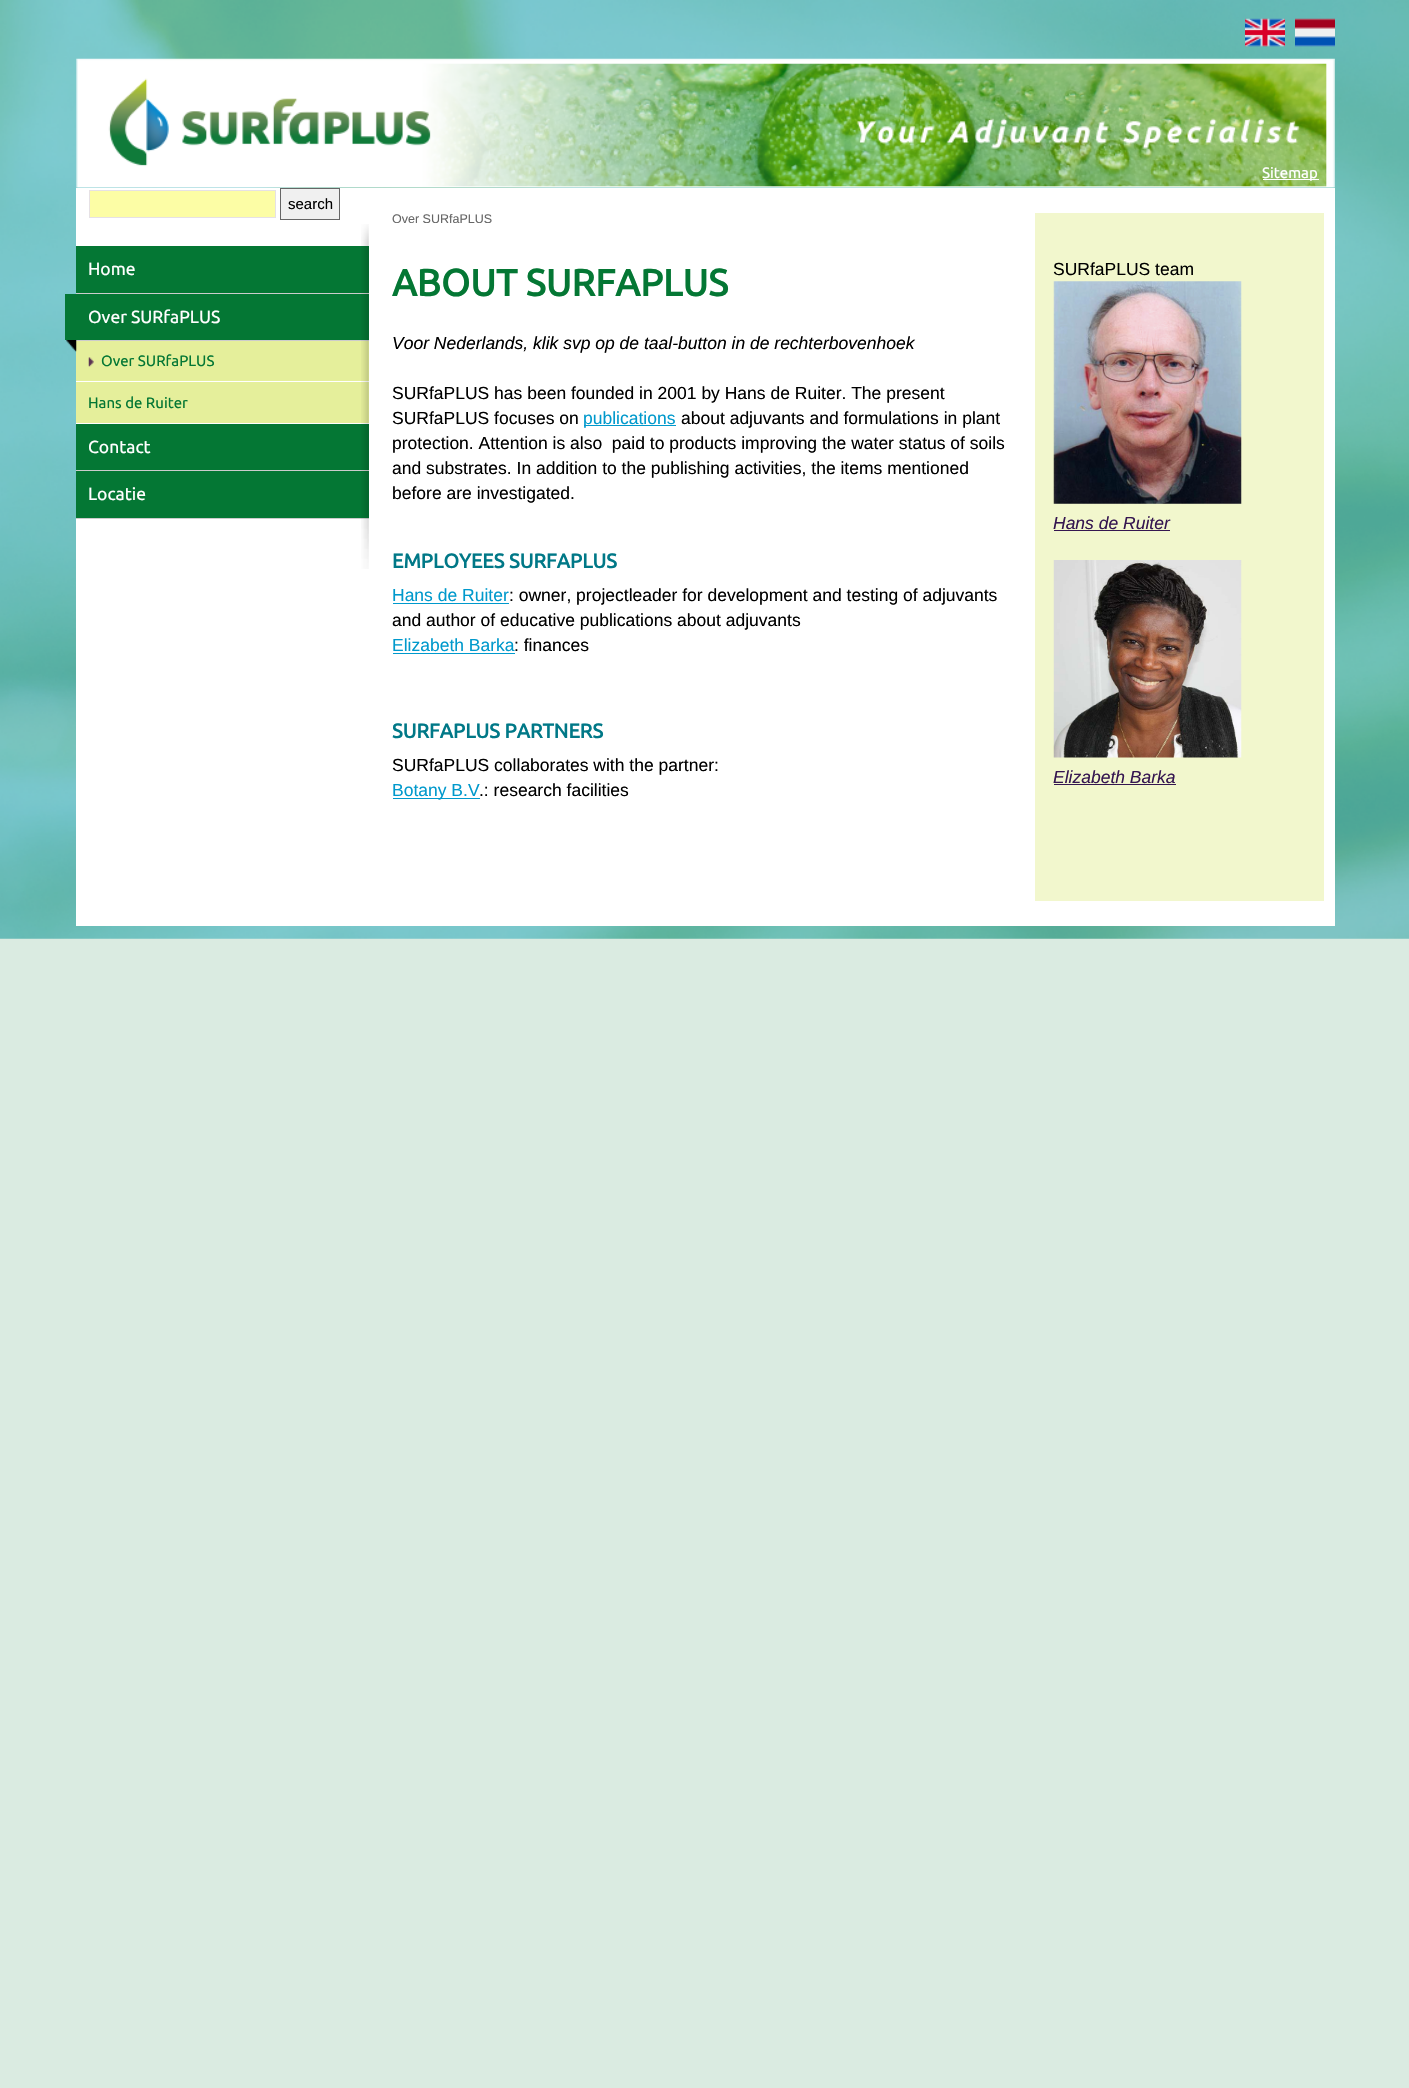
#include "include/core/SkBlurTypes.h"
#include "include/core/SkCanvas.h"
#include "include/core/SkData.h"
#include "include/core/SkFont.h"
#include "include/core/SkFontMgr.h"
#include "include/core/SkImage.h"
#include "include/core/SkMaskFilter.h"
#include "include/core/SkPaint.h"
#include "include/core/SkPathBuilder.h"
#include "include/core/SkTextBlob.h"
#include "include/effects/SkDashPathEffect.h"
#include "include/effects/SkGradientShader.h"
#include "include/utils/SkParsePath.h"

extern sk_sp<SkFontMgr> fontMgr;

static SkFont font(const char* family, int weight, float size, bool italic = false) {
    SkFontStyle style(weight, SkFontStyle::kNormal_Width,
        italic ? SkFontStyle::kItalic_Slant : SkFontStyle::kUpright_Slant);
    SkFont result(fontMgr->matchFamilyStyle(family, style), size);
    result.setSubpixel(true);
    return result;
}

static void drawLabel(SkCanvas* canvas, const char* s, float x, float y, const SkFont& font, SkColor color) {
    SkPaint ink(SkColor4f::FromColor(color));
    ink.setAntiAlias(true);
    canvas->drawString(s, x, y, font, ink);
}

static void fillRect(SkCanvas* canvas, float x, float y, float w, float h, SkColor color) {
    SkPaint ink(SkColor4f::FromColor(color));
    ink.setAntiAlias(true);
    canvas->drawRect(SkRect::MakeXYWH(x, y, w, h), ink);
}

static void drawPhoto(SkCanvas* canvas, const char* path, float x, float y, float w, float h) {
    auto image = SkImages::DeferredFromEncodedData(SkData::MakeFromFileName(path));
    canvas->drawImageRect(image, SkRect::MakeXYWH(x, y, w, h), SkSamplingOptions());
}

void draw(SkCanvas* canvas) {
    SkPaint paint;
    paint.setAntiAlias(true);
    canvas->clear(0xFFDAEBE1);
    drawPhoto(canvas, "assets/img1.png", 0, 0, 1409, 939);
    drawPhoto(canvas, "assets/img2.png", 1245, 18, 40, 29);
    drawPhoto(canvas, "assets/img3.png", 1295, 18, 40, 29);
    drawPhoto(canvas, "assets/img4.png", 76, 58, 1259, 130);
    fillRect(canvas, 1263, 179, 56, 1, 0xFFFFFFFF);
    SkFont font1 = font("Ubuntu", 400, 15);
    drawLabel(canvas, "Sitemap", 1262, 178, font1, 0xFFFFFFFF);
    fillRect(canvas, 76, 188, 293, 738, 0xFFFFFFFF);
    paint.setColor(0xFFFCFDA5);
    canvas->drawRect(SkRect::MakeXYWH(89.5f, 190.5f, 186, 27), paint);
    paint.setStroke(true);
    paint.setStrokeWidth(1);
    paint.setColor(0xFFE6E1E5);
    canvas->drawRect(SkRect::MakeXYWH(89.5f, 190.5f, 186, 27), paint);
    paint.setStroke(false);
    paint.setColor(0xFFF0F0F0);
    canvas->drawRect(SkRect::MakeXYWH(280.5f, 188.5f, 59, 31), paint);
    paint.setStroke(true);
    paint.setColor(0xFF666666);
    canvas->drawRect(SkRect::MakeXYWH(280.5f, 188.5f, 59, 31), paint);
    SkFont font2 = font("Liberation Sans", 400, 15);
    drawLabel(canvas, "search", 288, 209, font2, 0xFF000000);
    drawPhoto(canvas, "assets/img5.png", 361, 224, 8, 18);
    fillRect(canvas, 76, 246, 293, 47, 0xFF047734);
    fillRect(canvas, 76, 293, 293, 1, 0xFFCCCCCC);
    SkFont font3 = font("Ubuntu", 400, 17.5f);
    drawLabel(canvas, "Home", 88, 275, font3, 0xFFFFFFFF);
    fillRect(canvas, 65, 294, 304, 46, 0xFF047734);
    fillRect(canvas, 76, 340, 293, 1, 0xFFCCCCCC);
    drawLabel(canvas, "Over SURfaPLUS", 88, 323, font3, 0xFFFFFFFF);
    fillRect(canvas, 76, 341, 293, 82, 0xFFE5EF9B);
    drawPhoto(canvas, "assets/img6.png", 66, 340, 11, 12);
    drawPhoto(canvas, "assets/img7.png", 88, 357, 6, 10);
    fillRect(canvas, 76, 381, 293, 1, 0xFFFFFFFF);
    drawLabel(canvas, "Over SURfaPLUS", 101, 366, font1, 0xFF047734);
    drawLabel(canvas, "Hans de Ruiter", 88, 408, font1, 0xFF047734);
    fillRect(canvas, 76, 424, 293, 46, 0xFF047734);
    fillRect(canvas, 76, 470, 293, 1, 0xFFCCCCCC);
    drawLabel(canvas, "Contact", 88, 453, font3, 0xFFFFFFFF);
    fillRect(canvas, 76, 471, 293, 47, 0xFF047734);
    fillRect(canvas, 76, 518, 293, 1, 0xFFCCCCCC);
    drawLabel(canvas, "Locatie", 88, 500, font3, 0xFFFFFFFF);
    drawPhoto(canvas, "assets/img8.png", 361, 241, 8, 278);
    drawPhoto(canvas, "assets/img9.png", 361, 519, 8, 50);
    fillRect(canvas, 369, 188, 966, 738, 0xFFFFFFFF);
    SkFont font4 = font("Liberation Sans", 400, 12.5f);
    drawLabel(canvas, "Over SURfaPLUS", 392, 223, font4, 0xFF666666);
    SkFont font5 = font("Ubuntu", 700, 37.5f);
    drawLabel(canvas, "ABOUT SURFAPLUS", 392, 296, font5, 0xFF047734);
    SkFont font6 = font("Liberation Sans", 400, 17.5f, true);
    drawLabel(canvas, "Voor Nederlands, klik svp op de taal-button in de rechterbovenhoek", 392, 349, font6, 0xFF000000);
    SkFont font7 = font("Liberation Sans", 400, 17.5f);
    drawLabel(canvas, "SURfaPLUS has been founded in 2001 by Hans de Ruiter. The present", 392, 399, font7, 0xFF000000);
    drawLabel(canvas, "SURfaPLUS focuses on", 392, 424, font7, 0xFF000000);
    fillRect(canvas, 584, 425, 92, 1, 0xFF0099CC);
    drawLabel(canvas, "publications", 583, 424, font7, 0xFF0099CC);
    drawLabel(canvas, "about adjuvants and formulations in plant", 681, 424, font7, 0xFF000000);
    drawLabel(canvas, "protection. Attention is also  paid to products improving the water status of soils", 392, 449, font7, 0xFF000000);
    drawLabel(canvas, "and substrates. In addition to the publishing activities, the items mentioned", 392, 474, font7, 0xFF000000);
    drawLabel(canvas, "before are investigated.", 392, 499, font7, 0xFF000000);
    SkFont font8 = font("Ubuntu", 700, 20);
    drawLabel(canvas, "EMPLOYEES SURFAPLUS", 392, 568, font8, 0xFF007887);
    drawLabel(canvas, "Hans de Ruiter", 392, 601, font7, 0xFF0099CC);
    fillRect(canvas, 393, 603, 116, 1, 0xFF0099CC);
    drawLabel(canvas, ": owner, projectleader for development and testing of adjuvants", 509, 601, font7, 0xFF000000);
    drawLabel(canvas, "and author of educative publications about adjuvants", 392, 626, font7, 0xFF000000);
    drawLabel(canvas, "Elizabeth Barka", 392, 651, font7, 0xFF0099CC);
    fillRect(canvas, 393, 653, 122, 1, 0xFF0099CC);
    drawLabel(canvas, ": finances", 514, 651, font7, 0xFF000000);
    drawLabel(canvas, "SURFAPLUS PARTNERS", 392, 738, font8, 0xFF007887);
    drawLabel(canvas, "SURfaPLUS collaborates with the partner:", 392, 771, font7, 0xFF000000);
    fillRect(canvas, 393, 798, 87, 1, 0xFF0099CC);
    drawLabel(canvas, "Botany B.V", 392, 796, font7, 0xFF0099CC);
    drawLabel(canvas, ".: research facilities", 479, 796, font7, 0xFF000000);
    fillRect(canvas, 1035, 213, 289, 688, 0xFFF2F7CD);
    drawLabel(canvas, "SURfaPLUS team", 1053, 275, font7, 0xFF000000);
    drawPhoto(canvas, "assets/img10.png", 1053, 281, 189, 223);
    drawLabel(canvas, "Hans de Ruiter", 1053, 529, font6, 0xFF351650);
    fillRect(canvas, 1054, 530, 116, 1, 0xFF351650);
    drawPhoto(canvas, "assets/img11.png", 1053, 560, 189, 198);
    drawLabel(canvas, "Elizabeth Barka", 1053, 783, font6, 0xFF351650);
    fillRect(canvas, 1054, 784, 122, 1, 0xFF351650);
}
